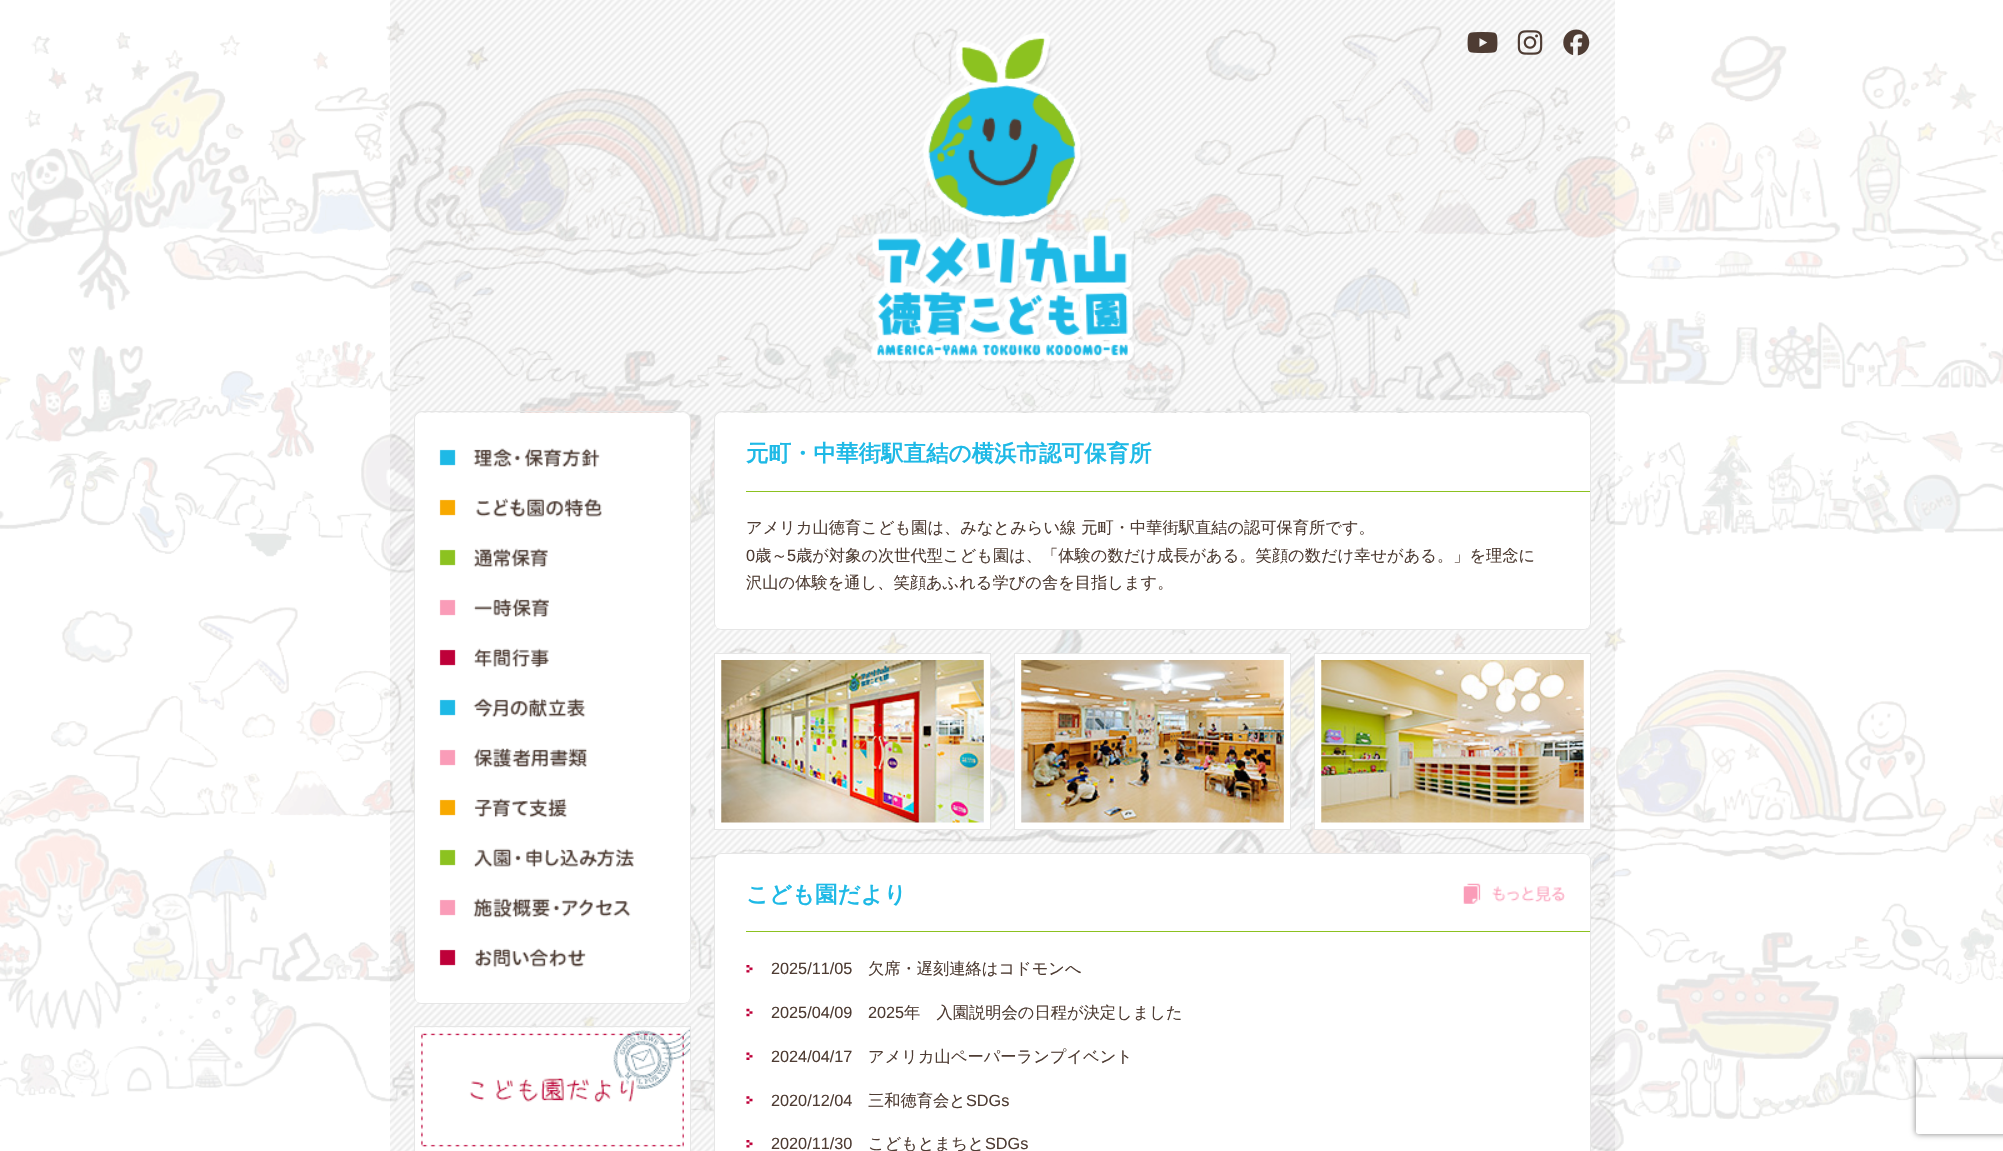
#include "include/core/SkBlurTypes.h"
#include "include/core/SkCanvas.h"
#include "include/core/SkData.h"
#include "include/core/SkFont.h"
#include "include/core/SkFontMgr.h"
#include "include/core/SkImage.h"
#include "include/core/SkMaskFilter.h"
#include "include/core/SkPaint.h"
#include "include/core/SkPathBuilder.h"
#include "include/core/SkTextBlob.h"
#include "include/effects/SkDashPathEffect.h"
#include "include/effects/SkGradientShader.h"
#include "include/utils/SkParsePath.h"

extern sk_sp<SkFontMgr> fontMgr;

static SkFont font(const char* family, int weight, float size, bool italic = false) {
    SkFontStyle style(weight, SkFontStyle::kNormal_Width,
        italic ? SkFontStyle::kItalic_Slant : SkFontStyle::kUpright_Slant);
    SkFont result(fontMgr->matchFamilyStyle(family, style), size);
    result.setSubpixel(true);
    return result;
}

static void drawLabel(SkCanvas* canvas, const char* s, float x, float y, const SkFont& font, SkColor color) {
    SkPaint ink(SkColor4f::FromColor(color));
    ink.setAntiAlias(true);
    canvas->drawString(s, x, y, font, ink);
}

static void fillRect(SkCanvas* canvas, float x, float y, float w, float h, SkColor color) {
    SkPaint ink(SkColor4f::FromColor(color));
    ink.setAntiAlias(true);
    canvas->drawRect(SkRect::MakeXYWH(x, y, w, h), ink);
}

static void fillRRect(SkCanvas* canvas, float x, float y, float w, float h, float radius, SkColor color) {
    SkPaint ink(SkColor4f::FromColor(color));
    ink.setAntiAlias(true);
    canvas->drawRoundRect(SkRect::MakeXYWH(x, y, w, h), radius, radius, ink);
}

static void drawPhoto(SkCanvas* canvas, const char* path, float x, float y, float w, float h) {
    auto image = SkImages::DeferredFromEncodedData(SkData::MakeFromFileName(path));
    canvas->drawImageRect(image, SkRect::MakeXYWH(x, y, w, h), SkSamplingOptions());
}

static SkPath parsePath(const char* data, bool evenOdd = false) {
    SkPath result = *SkParsePath::FromSVGString(data);
    if (evenOdd) result.setFillType(SkPathFillType::kEvenOdd);
    return result;
}

void draw(SkCanvas* canvas) {
    SkPaint paint;
    paint.setAntiAlias(true);
    canvas->clear(0xFFFFFFFF);
    drawPhoto(canvas, "assets/img1.png", 0, 21, 2003, 1130);
    drawPhoto(canvas, "assets/img2.png", 390, 0, 1225, 1151);
    drawPhoto(canvas, "assets/img3.png", 871, 32, 264, 332);
    drawPhoto(canvas, "assets/img4.png", 1467, 32, 31, 21);
    drawPhoto(canvas, "assets/img5.png", 1517, 30, 26, 25);
    drawPhoto(canvas, "assets/img6.png", 1563, 29, 27, 27);
    paint.setStroke(true);
    paint.setStrokeWidth(1);
    paint.setColor(0xFFE6E6E6);
    canvas->drawRoundRect(SkRect::MakeXYWH(414.5f, 411.5f, 276, 592), 7.5f, 7.5f, paint);
    fillRRect(canvas, 415, 413, 275, 590, 6, 0xFFFFFFFF);
    drawPhoto(canvas, "assets/img7.png", 439, 448, 161, 20);
    drawPhoto(canvas, "assets/img8.png", 439, 498, 163, 20);
    drawPhoto(canvas, "assets/img9.png", 439, 548, 109, 20);
    drawPhoto(canvas, "assets/img10.png", 439, 598, 110, 20);
    drawPhoto(canvas, "assets/img11.png", 439, 648, 110, 20);
    drawPhoto(canvas, "assets/img12.png", 439, 698, 147, 20);
    drawPhoto(canvas, "assets/img13.png", 439, 748, 148, 20);
    drawPhoto(canvas, "assets/img14.png", 439, 798, 128, 20);
    drawPhoto(canvas, "assets/img15.png", 439, 848, 195, 20);
    drawPhoto(canvas, "assets/img16.png", 439, 898, 192, 20);
    drawPhoto(canvas, "assets/img17.png", 439, 948, 147, 20);
    canvas->drawRect(SkRect::MakeXYWH(414.5f, 1026.5f, 276, 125), paint);
    fillRect(canvas, 415, 1148, 275, 3, 0xFFFFFFFF);
    drawPhoto(canvas, "assets/img18.png", 415, 1027, 275, 121);
    canvas->drawRoundRect(SkRect::MakeXYWH(714.5f, 411.5f, 876, 218), 7.5f, 7.5f, paint);
    fillRRect(canvas, 715, 413, 875, 216, 6, 0xFFFFFFFF);
    fillRect(canvas, 746, 491, 844, 1, 0xFF8CC220);
    SkFont font1 = font("WenQuanYi Zen Hei", 700, 22.5f);
    drawLabel(canvas, "元町・中華街駅直結の横浜市認可保育所", 746, 461, font1, 0xFF1EB9E6);
    SkFont font2 = font("WenQuanYi Zen Hei", 500, 16.25f);
    drawLabel(canvas, "アメリカ山徳育こども園は、みなとみらい線 元町・中華街駅直結の認可保育所です。", 746, 533, font2, 0xFF4E3C33);
    SkFont font3 = font("Liberation Sans", 400, 16.25f);
    drawLabel(canvas, "0", 746, 561, font3, 0xFF4E3C33);
    drawLabel(canvas, "歳～", 755, 561, font2, 0xFF4E3C33);
    drawLabel(canvas, "5", 787, 561, font3, 0xFF4E3C33);
    drawLabel(canvas, "歳が対象の次世代型こども園は、「体験の数だけ成長がある。笑顔の数だけ幸せがある。」を理念に", 796, 561, font2, 0xFF4E3C33);
    drawLabel(canvas, "沢山の体験を通し、笑顔あふれる学びの舎を目指します。", 746, 588, font2, 0xFF4E3C33);
    canvas->drawRect(SkRect::MakeXYWH(714.5f, 653.5f, 276, 176), paint);
    fillRect(canvas, 715, 654, 275, 175, 0xFFFFFFFF);
    drawPhoto(canvas, "assets/img19.png", 721, 660, 263, 163);
    canvas->drawRect(SkRect::MakeXYWH(1014.5f, 653.5f, 276, 176), paint);
    fillRect(canvas, 1015, 654, 275, 175, 0xFFFFFFFF);
    drawPhoto(canvas, "assets/img20.png", 1021, 660, 263, 163);
    canvas->drawRect(SkRect::MakeXYWH(1314.5f, 653.5f, 276, 176), paint);
    fillRect(canvas, 1315, 654, 275, 175, 0xFFFFFFFF);
    drawPhoto(canvas, "assets/img21.png", 1321, 660, 263, 163);
    canvas->drawRoundRect(SkRect::MakeXYWH(714.5f, 853.5f, 876, 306), 7.5f, 7.5f, paint);
    fillRRect(canvas, 715, 854, 875, 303, 6, 0xFFFFFFFF);
    fillRect(canvas, 746, 931, 844, 1, 0xFF8CC220);
    drawLabel(canvas, "こども園だより", 746, 902, font1, 0xFF1EB9E6);
    drawPhoto(canvas, "assets/img22.png", 1463, 883, 102, 21);
    drawPhoto(canvas, "assets/img23.png", 746, 965, 7, 8);
    drawLabel(canvas, "2025/11/05", 771, 974, font3, 0xFF4E3C33);
    drawLabel(canvas, "欠席・遅刻連絡はコドモンへ", 868, 974, font2, 0xFF4E3C33);
    drawPhoto(canvas, "assets/img24.png", 746, 1008, 7, 9);
    drawLabel(canvas, "2025/04/09", 771, 1018, font3, 0xFF4E3C33);
    drawLabel(canvas, "2025", 868, 1018, font3, 0xFF4E3C33);
    drawLabel(canvas, "年　入園説明会の日程が決定しました", 904, 1018, font2, 0xFF4E3C33);
    drawPhoto(canvas, "assets/img25.png", 746, 1052, 7, 8);
    drawLabel(canvas, "2024/04/17", 771, 1062, font3, 0xFF4E3C33);
    drawLabel(canvas, "アメリカ山ペーパーランプイベント", 868, 1062, font2, 0xFF4E3C33);
    drawPhoto(canvas, "assets/img26.png", 746, 1096, 7, 8);
    drawLabel(canvas, "2020/12/04", 771, 1106, font3, 0xFF4E3C33);
    drawLabel(canvas, "三和徳育会と", 868, 1106, font2, 0xFF4E3C33);
    drawLabel(canvas, "SDGs", 966, 1106, font3, 0xFF4E3C33);
    drawPhoto(canvas, "assets/img23.png", 746, 1140, 7, 8);
    drawLabel(canvas, "2020/11/30", 771, 1149, font3, 0xFF4E3C33);
    drawLabel(canvas, "こどもとまちと", 868, 1149, font2, 0xFF4E3C33);
    drawLabel(canvas, "SDGs", 985, 1149, font3, 0xFF4E3C33);
    canvas->save();
    canvas->clipPath(parsePath("M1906 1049H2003V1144H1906ZM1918.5 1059H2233.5C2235 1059 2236 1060 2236 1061.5V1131.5C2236 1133 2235 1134 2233.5 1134H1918.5C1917 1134 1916 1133 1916 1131.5V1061.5C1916 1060 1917 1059 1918.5 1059Z", true), true);
    paint.setStroke(false);
    paint.setColor(0xFF808080);
    paint.setMaskFilter(SkMaskFilter::MakeBlur(kNormal_SkBlurStyle, 3));
    canvas->drawRoundRect(SkRect::MakeXYWH(1916, 1059, 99, 75), 2.5f, 2.5f, paint);
    paint.setMaskFilter(nullptr);
    canvas->restore();
}
